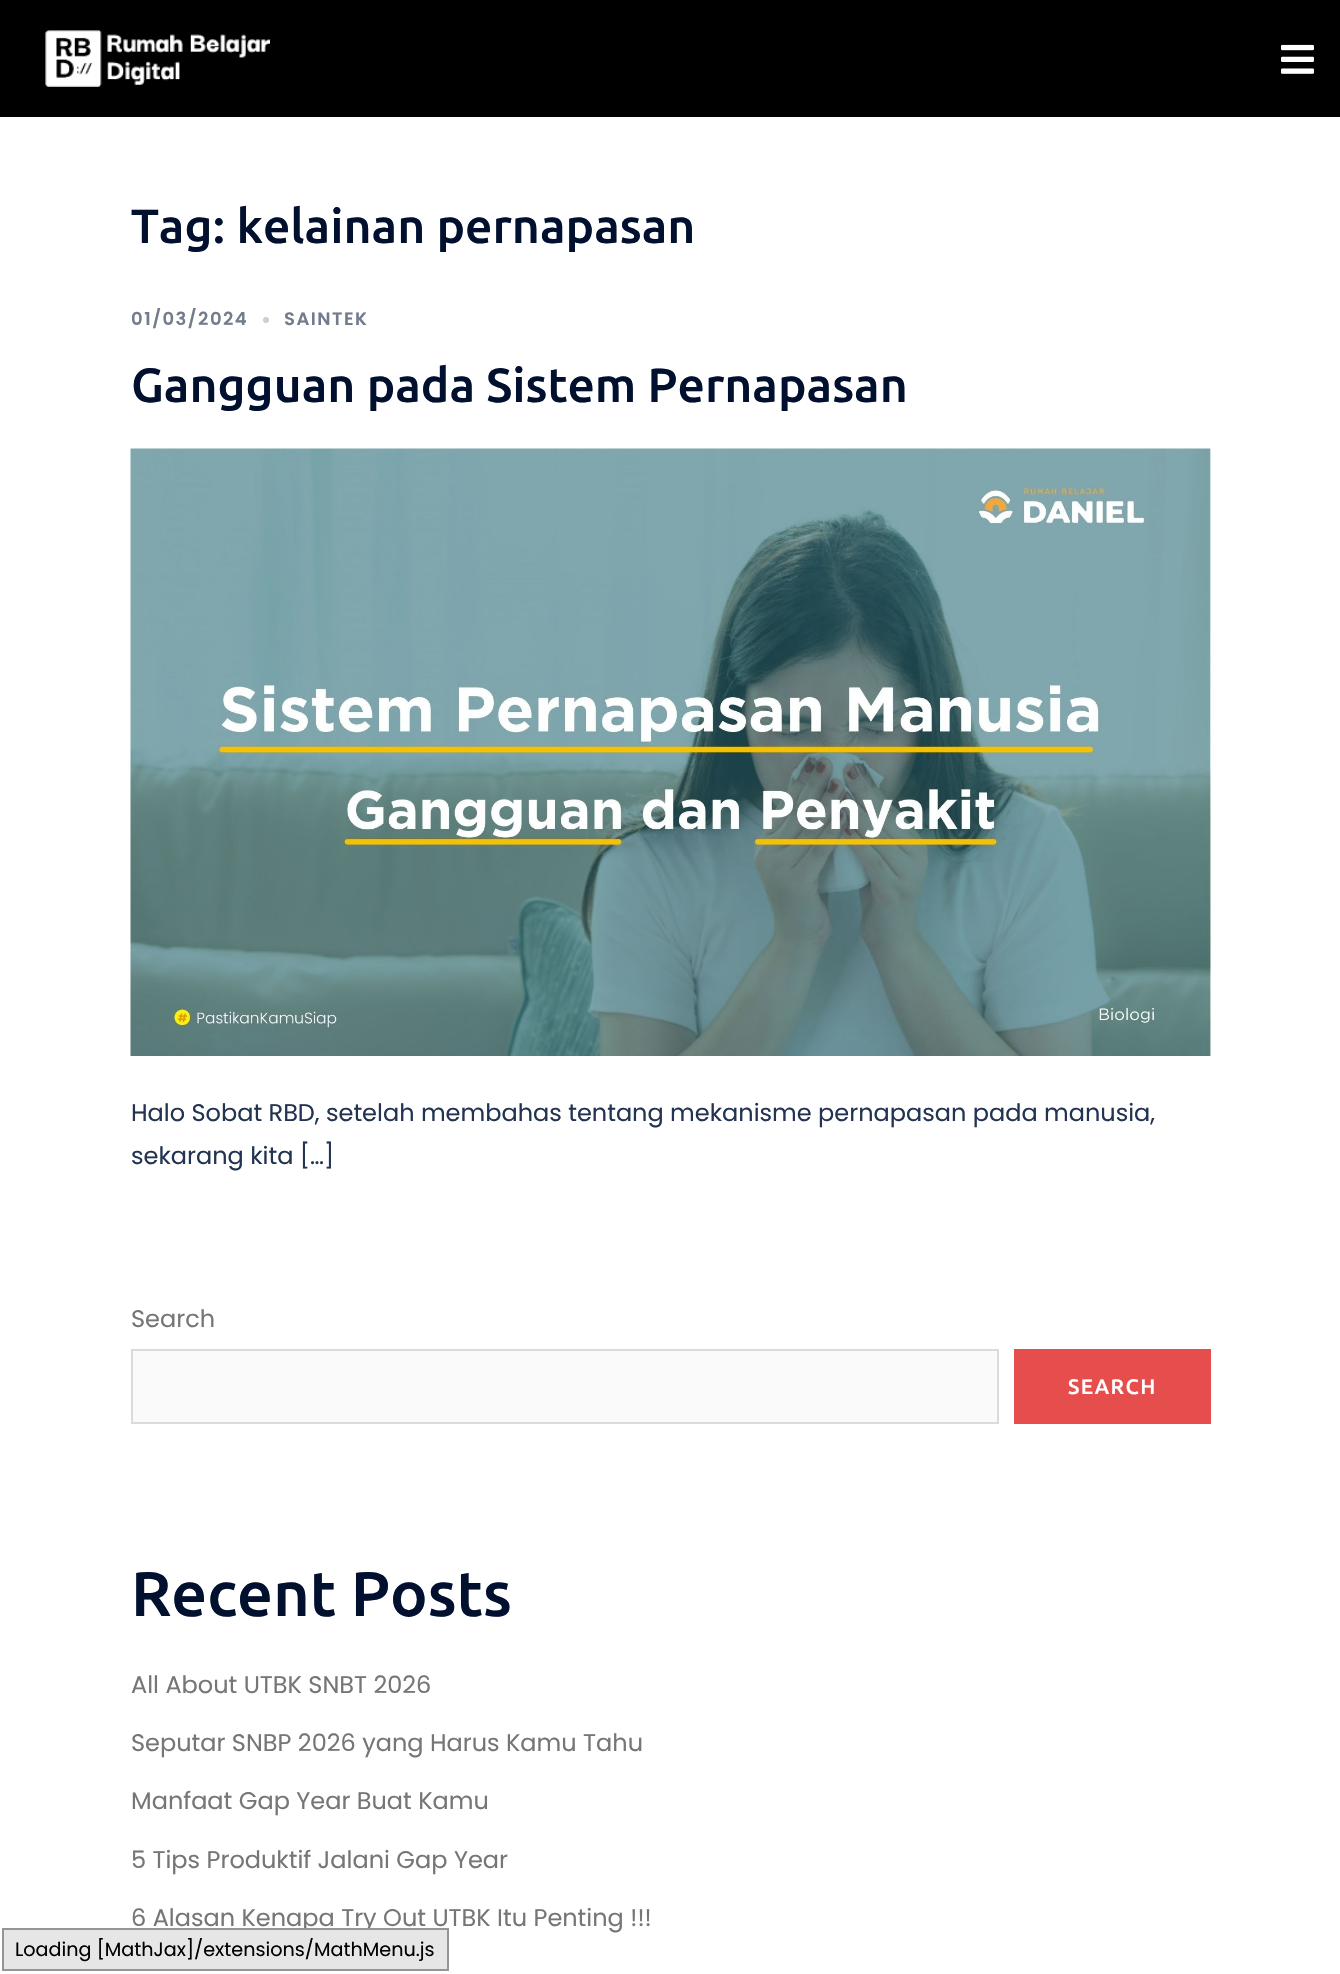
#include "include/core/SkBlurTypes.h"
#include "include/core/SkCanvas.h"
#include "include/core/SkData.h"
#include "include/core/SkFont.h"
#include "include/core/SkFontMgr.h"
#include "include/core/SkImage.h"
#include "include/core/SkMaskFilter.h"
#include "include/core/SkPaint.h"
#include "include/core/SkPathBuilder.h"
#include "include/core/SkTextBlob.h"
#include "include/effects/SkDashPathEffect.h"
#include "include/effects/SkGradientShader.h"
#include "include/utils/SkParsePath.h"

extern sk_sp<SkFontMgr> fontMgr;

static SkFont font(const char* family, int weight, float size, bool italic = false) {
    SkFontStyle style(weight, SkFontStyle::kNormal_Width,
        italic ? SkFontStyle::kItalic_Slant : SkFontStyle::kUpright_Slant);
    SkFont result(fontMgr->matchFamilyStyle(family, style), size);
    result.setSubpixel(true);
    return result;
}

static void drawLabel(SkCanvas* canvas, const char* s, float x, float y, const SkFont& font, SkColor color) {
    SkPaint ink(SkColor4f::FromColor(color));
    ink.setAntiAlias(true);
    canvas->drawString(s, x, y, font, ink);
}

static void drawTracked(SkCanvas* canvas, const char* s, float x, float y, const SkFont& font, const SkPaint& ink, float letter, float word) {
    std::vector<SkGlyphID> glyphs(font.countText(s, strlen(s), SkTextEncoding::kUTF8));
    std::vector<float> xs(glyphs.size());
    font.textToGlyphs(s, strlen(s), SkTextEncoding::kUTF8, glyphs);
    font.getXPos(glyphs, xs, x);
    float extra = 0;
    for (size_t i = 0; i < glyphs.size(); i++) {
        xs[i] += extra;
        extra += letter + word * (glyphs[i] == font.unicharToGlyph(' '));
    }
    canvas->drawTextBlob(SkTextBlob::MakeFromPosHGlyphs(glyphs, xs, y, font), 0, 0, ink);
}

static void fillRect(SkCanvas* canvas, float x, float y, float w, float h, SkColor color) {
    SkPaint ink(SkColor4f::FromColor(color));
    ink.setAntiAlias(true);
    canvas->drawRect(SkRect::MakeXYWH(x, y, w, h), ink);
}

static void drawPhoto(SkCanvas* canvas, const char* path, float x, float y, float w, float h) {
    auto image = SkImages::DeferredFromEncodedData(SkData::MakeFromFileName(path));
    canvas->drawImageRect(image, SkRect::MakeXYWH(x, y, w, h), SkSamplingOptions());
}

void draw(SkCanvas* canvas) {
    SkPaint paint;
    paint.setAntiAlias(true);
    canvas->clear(0xFFFFFFFF);
    fillRect(canvas, 0, 0, 1340, 117, 0xFF000000);
    drawPhoto(canvas, "assets/img1.png", 45, 30, 225, 57);
    drawPhoto(canvas, "assets/img2.png", 1281, 44, 33, 30);
    SkFont font1 = font("Ubuntu", 500, 48);
    drawLabel(canvas, "Tag: kelainan pernapasan", 131, 243, font1, 0xFF00102E);
    SkFont font2 = font("Poppins", 600, 18);
    paint.setColor(0xFF737C8C);
    drawTracked(canvas, "01/03/2024", 131, 325, font2, paint, 1.5f, 0);
    paint.setColor(0xFFCCCFD5);
    canvas->drawCircle(266, 320, 3, paint);
    paint.setColor(0xFF737C8C);
    drawTracked(canvas, "SAINTEK", 284, 325, font2, paint, 1.5f, 0);
    drawLabel(canvas, "Gangguan pada Sistem Pernapasan", 131, 402, font1, 0xFF00102E);
    drawPhoto(canvas, "assets/img3.png", 130, 448, 1081, 608);
    SkFont font3 = font("Poppins", 400, 24);
    drawLabel(canvas, "Halo Sobat RBD, setelah membahas tentang mekanisme pernapasan pada manusia,", 131, 1121, font3, 0xFF233452);
    drawLabel(canvas, "sekarang kita […]", 131, 1164, font3, 0xFF233452);
    drawLabel(canvas, "Search", 131, 1327, font3, 0xFF767676);
    paint.setColor(0xFFFAFAFA);
    canvas->drawRect(SkRect::MakeXYWH(132, 1350, 866, 73), paint);
    paint.setStroke(true);
    paint.setStrokeWidth(2);
    paint.setColor(0xFFDBDBDB);
    canvas->drawRect(SkRect::MakeXYWH(132, 1350, 866, 73), paint);
    fillRect(canvas, 1014, 1349, 197, 75, 0xFFE64E4E);
    SkFont font4 = font("Ubuntu", 500, 21);
    paint.setStroke(false);
    paint.setColor(0xFFFFFFFF);
    drawTracked(canvas, "SEARCH", 1068, 1394, font4, paint, 1.5f, 0);
    SkFont font5 = font("Ubuntu", 500, 63);
    drawLabel(canvas, "Recent Posts", 131, 1616, font5, 0xFF00102E);
    drawLabel(canvas, "All About UTBK SNBT 2026", 131, 1693, font3, 0xFF767676);
    drawLabel(canvas, "Seputar SNBP 2026 yang Harus Kamu Tahu", 131, 1751, font3, 0xFF767676);
    drawLabel(canvas, "Manfaat Gap Year Buat Kamu", 131, 1809, font3, 0xFF767676);
    drawLabel(canvas, "5 Tips Produktif Jalani Gap Year", 131, 1868, font3, 0xFF767676);
    drawLabel(canvas, "6 Alasan Kenapa Try Out UTBK Itu Penting !!!", 131, 1926, font3, 0xFF767676);
    paint.setColor(0xFFE6E6E6);
    canvas->drawRect(SkRect::MakeXYWH(3, 1929, 445, 41), paint);
    paint.setStroke(true);
    paint.setColor(0xFF959595);
    canvas->drawRect(SkRect::MakeXYWH(3, 1929, 445, 41), paint);
    SkFont font6 = font("Poppins", 400, 19.2f);
    drawLabel(canvas, "Loading [MathJax]/extensions/MathMenu.js", 15, 1956, font6, 0xFF000000);
}
